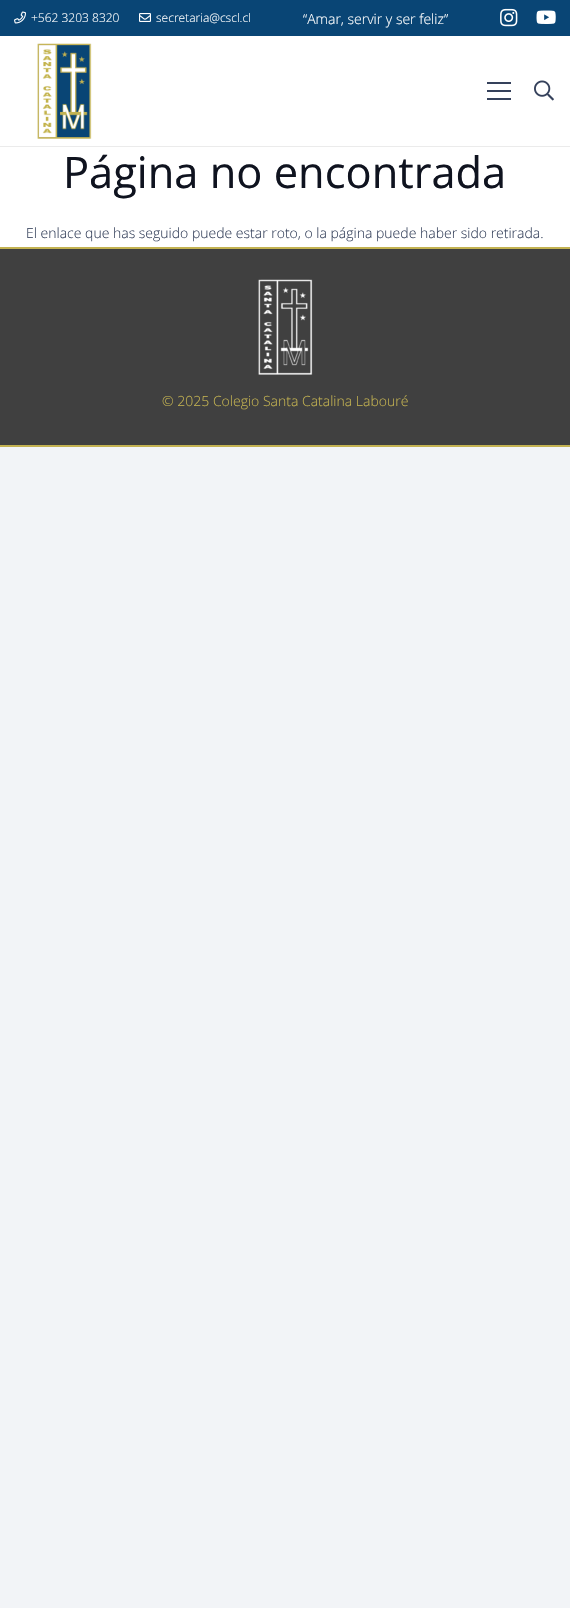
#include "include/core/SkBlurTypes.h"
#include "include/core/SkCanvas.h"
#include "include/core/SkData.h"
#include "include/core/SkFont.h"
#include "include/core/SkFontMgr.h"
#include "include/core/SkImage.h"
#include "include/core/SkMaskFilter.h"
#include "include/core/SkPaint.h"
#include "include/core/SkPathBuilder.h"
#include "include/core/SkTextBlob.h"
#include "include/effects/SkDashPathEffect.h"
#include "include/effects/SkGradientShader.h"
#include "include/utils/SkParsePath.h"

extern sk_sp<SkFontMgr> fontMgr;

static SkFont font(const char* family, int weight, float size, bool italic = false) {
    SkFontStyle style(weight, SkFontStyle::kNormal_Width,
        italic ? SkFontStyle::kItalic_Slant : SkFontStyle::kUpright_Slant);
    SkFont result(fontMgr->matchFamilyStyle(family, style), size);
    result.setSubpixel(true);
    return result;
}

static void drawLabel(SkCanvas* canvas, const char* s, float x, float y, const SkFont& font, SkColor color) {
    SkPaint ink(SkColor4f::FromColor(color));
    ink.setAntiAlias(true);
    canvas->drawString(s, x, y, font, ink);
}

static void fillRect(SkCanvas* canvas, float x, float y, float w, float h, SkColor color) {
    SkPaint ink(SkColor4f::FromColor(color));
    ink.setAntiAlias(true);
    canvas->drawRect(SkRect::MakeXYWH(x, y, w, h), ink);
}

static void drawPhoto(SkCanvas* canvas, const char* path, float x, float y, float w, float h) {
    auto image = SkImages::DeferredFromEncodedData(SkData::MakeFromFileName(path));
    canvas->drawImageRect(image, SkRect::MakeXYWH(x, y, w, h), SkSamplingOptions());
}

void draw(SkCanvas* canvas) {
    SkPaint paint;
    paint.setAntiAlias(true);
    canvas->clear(0xFFF2F4F7);
    fillRect(canvas, 0, 36, 570, 211, 0xFFFFFFFF);
    fillRect(canvas, 0, 0, 570, 36, 0xFF094575);
    drawPhoto(canvas, "assets/img1.png", 14, 11, 12, 13);
    SkFont font1 = font("Open Sans", 300, 12);
    drawLabel(canvas, "+562 3203 8320", 31, 22, font1, 0xFFFFFFFF);
    drawPhoto(canvas, "assets/img2.png", 139, 13, 12, 9);
    drawLabel(canvas, "secretaria@cscl.cl", 156, 22, font1, 0xFFFFFFFF);
    SkFont font2 = font("Open Sans", 300, 14);
    drawLabel(canvas, "“Amar, servir y ser feliz”", 303, 24, font2, 0xFFFFFFFF);
    drawPhoto(canvas, "assets/img3.png", 500, 8, 18, 19);
    drawPhoto(canvas, "assets/img4.png", 536, 10, 20, 14);
    fillRect(canvas, 0, 146, 570, 1, 0xFFEBEBEB);
    drawPhoto(canvas, "assets/img5.png", 37, 43, 55, 96);
    fillRect(canvas, 487, 90, 24, 2, 0xFF35415B);
    fillRect(canvas, 487, 82, 24, 2, 0xFF35415B);
    fillRect(canvas, 487, 98, 24, 2, 0xFF35415B);
    drawPhoto(canvas, "assets/img6.png", 534, 80, 20, 21);
    SkFont font3 = font("Open Sans", 400, 43.4f);
    drawLabel(canvas, "Página no encontrada", 63, 188, font3, 0xFF0F131F);
    drawLabel(canvas, "El enlace que has seguido puede estar roto, o la página puede haber sido retirada.", 26, 238, font2, 0xFF35415B);
    fillRect(canvas, 0, 247, 570, 2, 0xFFC3B251);
    fillRect(canvas, 0, 249, 570, 196, 0xFF404040);
    drawPhoto(canvas, "assets/img7.png", 258, 279, 55, 96);
    drawLabel(canvas, "© 2025 Colegio Santa Catalina Labouré", 162, 406, font2, 0xFFC3B251);
    fillRect(canvas, 0, 445, 570, 2, 0xFFC3B251);
}
